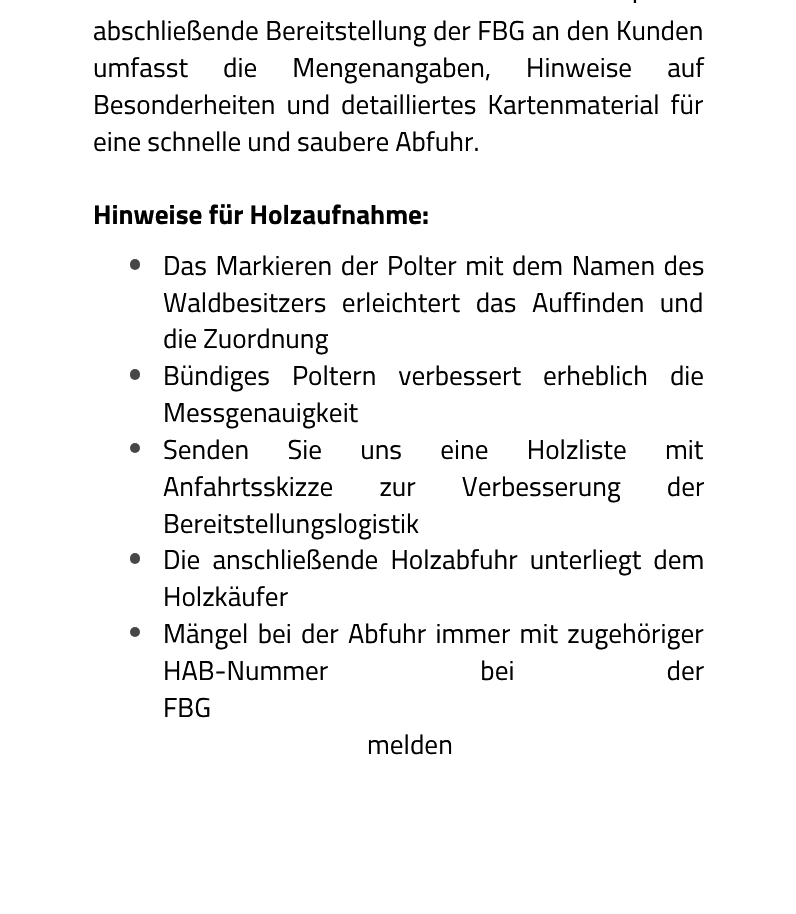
#include "include/core/SkBlurTypes.h"
#include "include/core/SkCanvas.h"
#include "include/core/SkData.h"
#include "include/core/SkFont.h"
#include "include/core/SkFontMgr.h"
#include "include/core/SkImage.h"
#include "include/core/SkMaskFilter.h"
#include "include/core/SkPaint.h"
#include "include/core/SkPathBuilder.h"
#include "include/core/SkTextBlob.h"
#include "include/effects/SkDashPathEffect.h"
#include "include/effects/SkGradientShader.h"
#include "include/utils/SkParsePath.h"

extern sk_sp<SkFontMgr> fontMgr;

static SkFont font(const char* family, int weight, float size, bool italic = false) {
    SkFontStyle style(weight, SkFontStyle::kNormal_Width,
        italic ? SkFontStyle::kItalic_Slant : SkFontStyle::kUpright_Slant);
    SkFont result(fontMgr->matchFamilyStyle(family, style), size);
    result.setSubpixel(true);
    return result;
}

static void drawLabel(SkCanvas* canvas, const char* s, float x, float y, const SkFont& font, SkColor color) {
    SkPaint ink(SkColor4f::FromColor(color));
    ink.setAntiAlias(true);
    canvas->drawString(s, x, y, font, ink);
}

static void drawTracked(SkCanvas* canvas, const char* s, float x, float y, const SkFont& font, const SkPaint& ink, float letter, float word) {
    std::vector<SkGlyphID> glyphs(font.countText(s, strlen(s), SkTextEncoding::kUTF8));
    std::vector<float> xs(glyphs.size());
    font.textToGlyphs(s, strlen(s), SkTextEncoding::kUTF8, glyphs);
    font.getXPos(glyphs, xs, x);
    float extra = 0;
    for (size_t i = 0; i < glyphs.size(); i++) {
        xs[i] += extra;
        extra += letter + word * (glyphs[i] == font.unicharToGlyph(' '));
    }
    canvas->drawTextBlob(SkTextBlob::MakeFromPosHGlyphs(glyphs, xs, y, font), 0, 0, ink);
}

static void fillRRect(SkCanvas* canvas, float x, float y, float w, float h, float radius, SkColor color) {
    SkPaint ink(SkColor4f::FromColor(color));
    ink.setAntiAlias(true);
    canvas->drawRoundRect(SkRect::MakeXYWH(x, y, w, h), radius, radius, ink);
}

void draw(SkCanvas* canvas) {
    SkPaint paint;
    paint.setAntiAlias(true);
    canvas->clear(0xFFFFFFFF);
    SkFont font1 = font("Titillium Web", 400, 27.3f);
    paint.setColor(0xFF000000);
    drawTracked(canvas, ".", 632, 3, font1, paint, 0, 22);
    drawTracked(canvas, "abschließende Bereitstellung der FBG an den Kunden", 93, 40, font1, paint, 0, 0.5f);
    drawTracked(canvas, "umfasst die Mengenangaben, Hinweise auf", 93, 77, font1, paint, 0, 29);
    drawTracked(canvas, "Besonderheiten und detailliertes Kartenmaterial für", 93, 114, font1, paint, 0, 5);
    drawLabel(canvas, "eine schnelle und saubere Abfuhr.", 93, 151, font1, 0xFF000000);
    SkFont font2 = font("Titillium Web", 700, 27.3f);
    drawLabel(canvas, "Hinweise für Holzaufnahme:", 93, 224, font2, 0xFF000000);
    fillRRect(canvas, 130, 259, 10, 11, 5, 0xFF474747);
    drawTracked(canvas, "Das Markieren der Polter mit dem Namen des", 163, 275, font1, paint, 0, 2.5f);
    drawTracked(canvas, "Waldbesitzers erleichtert das Auffinden und", 163, 312, font1, paint, 0, 9.5f);
    drawLabel(canvas, "die Zuordnung", 163, 348, font1, 0xFF000000);
    fillRRect(canvas, 130, 369, 10, 11, 5, 0xFF474747);
    drawTracked(canvas, "Bündiges Poltern verbessert erheblich die", 163, 385, font1, paint, 0, 16);
    drawLabel(canvas, "Messgenauigkeit", 163, 422, font1, 0xFF000000);
    paint.setColor(0xFF474747);
    canvas->drawCircle(135, 448, 5, paint);
    paint.setColor(0xFF000000);
    drawTracked(canvas, "Senden Sie uns eine Holzliste mit", 163, 459, font1, paint, 0, 32.25f);
    drawTracked(canvas, "Anfahrtsskizze zur Verbesserung der", 163, 496, font1, paint, 0, 40);
    drawLabel(canvas, "Bereitstellungslogistik", 163, 533, font1, 0xFF000000);
    fillRRect(canvas, 130, 553, 10, 11, 5, 0xFF474747);
    drawTracked(canvas, "Die anschließende Holzabfuhr unterliegt dem", 163, 569, font1, paint, 0, 6);
    drawLabel(canvas, "Holzkäufer", 163, 606, font1, 0xFF000000);
    paint.setColor(0xFF474747);
    canvas->drawCircle(135, 632, 5, paint);
    paint.setColor(0xFF000000);
    drawTracked(canvas, "Mängel bei der Abfuhr immer mit zugehöriger", 163, 643, font1, paint, 0, 3.25f);
    drawTracked(canvas, "HAB-Nummer bei der", 163, 680, font1, paint, 0, 146);
    drawLabel(canvas, "FBG", 163, 717, font1, 0xFF000000);
    drawLabel(canvas, "melden", 367, 754, font1, 0xFF000000);
}
